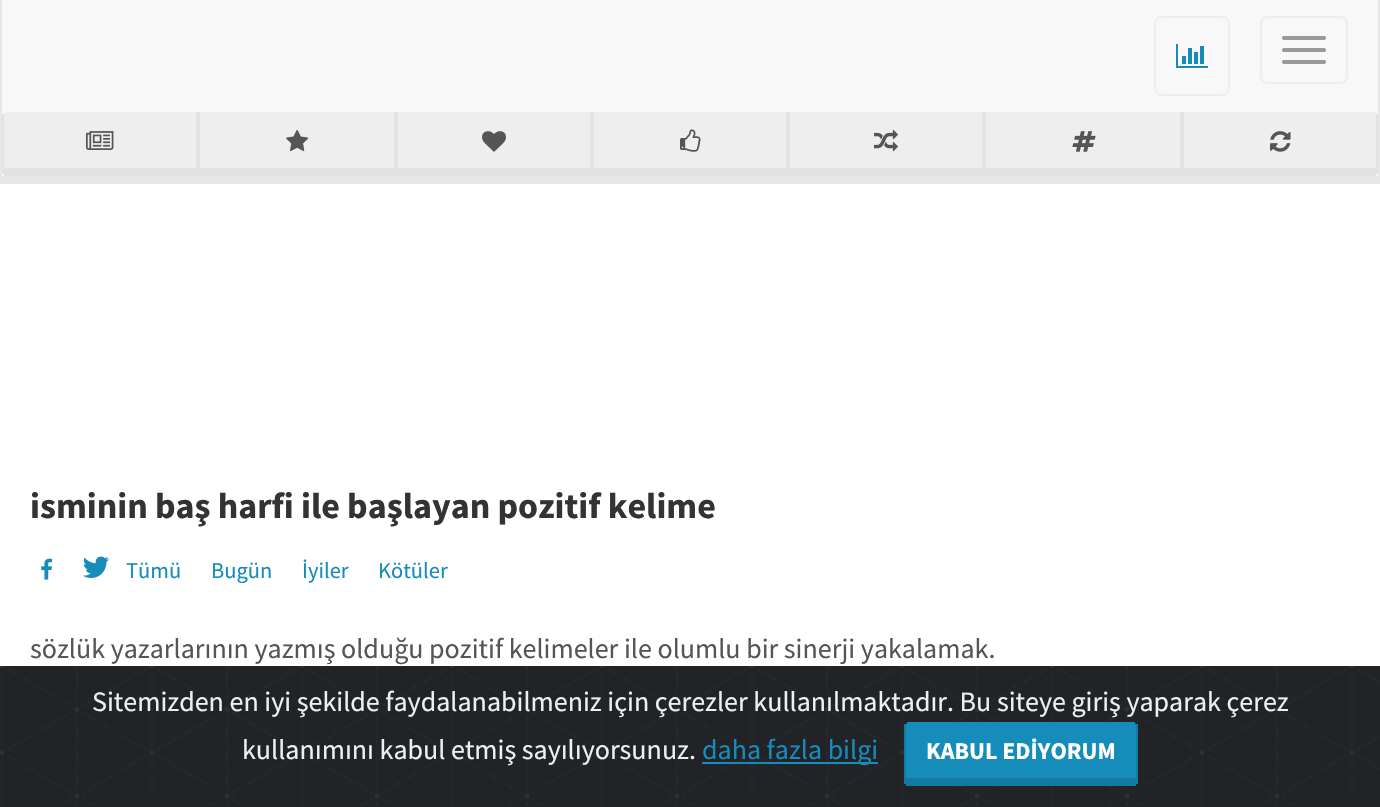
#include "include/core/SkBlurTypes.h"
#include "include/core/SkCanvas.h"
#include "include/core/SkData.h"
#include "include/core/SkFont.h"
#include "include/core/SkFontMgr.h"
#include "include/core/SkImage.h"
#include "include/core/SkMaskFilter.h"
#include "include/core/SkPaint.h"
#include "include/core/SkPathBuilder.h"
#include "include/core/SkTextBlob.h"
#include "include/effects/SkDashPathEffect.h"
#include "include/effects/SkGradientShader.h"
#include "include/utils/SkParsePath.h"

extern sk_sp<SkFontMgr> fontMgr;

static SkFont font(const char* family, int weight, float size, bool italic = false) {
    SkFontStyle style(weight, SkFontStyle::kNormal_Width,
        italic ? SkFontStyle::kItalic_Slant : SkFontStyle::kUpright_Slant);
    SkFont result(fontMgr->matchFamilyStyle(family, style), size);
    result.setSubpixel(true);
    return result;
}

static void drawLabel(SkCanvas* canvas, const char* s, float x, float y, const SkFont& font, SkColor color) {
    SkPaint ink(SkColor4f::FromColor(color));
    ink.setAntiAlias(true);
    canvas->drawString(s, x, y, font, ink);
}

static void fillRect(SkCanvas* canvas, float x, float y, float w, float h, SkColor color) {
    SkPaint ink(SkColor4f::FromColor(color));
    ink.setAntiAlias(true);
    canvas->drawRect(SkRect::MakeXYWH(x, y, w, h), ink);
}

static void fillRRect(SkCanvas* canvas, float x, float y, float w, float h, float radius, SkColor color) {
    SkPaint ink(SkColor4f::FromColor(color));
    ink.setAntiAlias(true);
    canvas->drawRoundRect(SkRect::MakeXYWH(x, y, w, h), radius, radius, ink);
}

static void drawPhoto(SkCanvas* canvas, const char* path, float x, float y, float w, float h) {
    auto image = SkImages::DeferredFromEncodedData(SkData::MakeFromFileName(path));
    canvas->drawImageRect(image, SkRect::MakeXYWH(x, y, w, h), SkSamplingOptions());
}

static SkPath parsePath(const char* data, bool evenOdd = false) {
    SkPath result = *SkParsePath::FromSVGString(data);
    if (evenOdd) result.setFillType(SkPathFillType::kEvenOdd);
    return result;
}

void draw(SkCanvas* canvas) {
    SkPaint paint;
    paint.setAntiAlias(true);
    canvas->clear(0xFFFFFFFF);
    SkFont font1 = font("Source Sans Pro", 700, 36);
    drawLabel(canvas, "isminin baş harfi ile başlayan pozitif kelime", 30, 518, font1, 0xFF333333);
    drawPhoto(canvas, "assets/img1.png", 41, 558, 12, 22);
    drawPhoto(canvas, "assets/img2.png", 83, 556, 26, 22);
    SkFont font2 = font("Source Sans Pro", 400, 22.5f);
    drawLabel(canvas, "Tümü", 126, 578, font2, 0xFF158CBA);
    drawLabel(canvas, "Bugün", 211, 578, font2, 0xFF158CBA);
    drawLabel(canvas, "İyiler", 302, 578, font2, 0xFF158CBA);
    drawLabel(canvas, "Kötüler", 378, 578, font2, 0xFF158CBA);
    SkFont font3 = font("Source Sans Pro", 400, 28);
    drawLabel(canvas, "sözlük yazarlarının yazmış olduğu pozitif kelimeler ile olumlu bir sinerji yakalamak.", 30, 658, font3, 0xFF555555);
    fillRect(canvas, 2, 0, 1376, 176, 0xFFF8F8F8);
    fillRect(canvas, 1378, 0, 2, 184, 0xFFE7E7E7);
    fillRect(canvas, 0, 176, 1380, 8, 0xFFE7E7E7);
    fillRect(canvas, 0, 0, 2, 184, 0xFFE7E7E7);
    paint.setStroke(true);
    paint.setStrokeWidth(2);
    paint.setColor(0xFFEEEEEE);
    canvas->drawRoundRect(SkRect::MakeXYWH(1155, 17, 74, 78), 7, 7, paint);
    drawPhoto(canvas, "assets/img3.png", 1176, 44, 32, 24);
    canvas->drawRoundRect(SkRect::MakeXYWH(1261, 17, 86, 66), 7, 7, paint);
    fillRRect(canvas, 1282, 36, 44, 4, 2, 0xFF999999);
    fillRRect(canvas, 1282, 48, 44, 4, 2, 0xFF999999);
    fillRRect(canvas, 1282, 60, 44, 4, 2, 0xFF999999);
    paint.setStroke(false);
    canvas->drawPath(parsePath("M6 112H196V168H4V116C4 114 5 112 6 112Z"), paint);
    fillRect(canvas, 196, 112, 2, 64, 0xFFE2E2E2);
    fillRect(canvas, 4, 168, 194, 8, 0xFFE2E2E2);
    fillRect(canvas, 2, 114, 2, 60, 0xFFE2E2E2);
    drawPhoto(canvas, "assets/img4.png", 86, 131, 28, 19);
    fillRect(canvas, 200, 112, 194, 56, 0xFFEEEEEE);
    fillRect(canvas, 394, 112, 2, 64, 0xFFE2E2E2);
    fillRect(canvas, 198, 168, 198, 8, 0xFFE2E2E2);
    fillRect(canvas, 198, 112, 2, 64, 0xFFE2E2E2);
    drawPhoto(canvas, "assets/img5.png", 286, 129, 23, 23);
    fillRect(canvas, 398, 112, 192, 56, 0xFFEEEEEE);
    fillRect(canvas, 590, 112, 2, 64, 0xFFE2E2E2);
    fillRect(canvas, 396, 168, 196, 8, 0xFFE2E2E2);
    fillRect(canvas, 396, 112, 2, 64, 0xFFE2E2E2);
    drawPhoto(canvas, "assets/img6.png", 482, 131, 24, 21);
    fillRect(canvas, 594, 112, 192, 56, 0xFFEEEEEE);
    fillRect(canvas, 786, 112, 2, 64, 0xFFE2E2E2);
    fillRect(canvas, 592, 168, 196, 8, 0xFFE2E2E2);
    fillRect(canvas, 592, 112, 2, 64, 0xFFE2E2E2);
    drawPhoto(canvas, "assets/img7.png", 680, 129, 21, 23);
    fillRect(canvas, 790, 112, 192, 56, 0xFFEEEEEE);
    fillRect(canvas, 982, 112, 2, 64, 0xFFE2E2E2);
    fillRect(canvas, 788, 168, 196, 8, 0xFFE2E2E2);
    fillRect(canvas, 788, 112, 2, 64, 0xFFE2E2E2);
    drawPhoto(canvas, "assets/img8.png", 874, 129, 24, 23);
    fillRect(canvas, 986, 112, 194, 56, 0xFFEEEEEE);
    fillRect(canvas, 1180, 112, 2, 64, 0xFFE2E2E2);
    fillRect(canvas, 984, 168, 392, 8, 0xFFE2E2E2);
    fillRect(canvas, 984, 112, 2, 64, 0xFFE2E2E2);
    drawPhoto(canvas, "assets/img9.png", 1072, 131, 24, 21);
    canvas->drawPath(parsePath("M1184 112H1374C1375 112 1376 114 1376 116V168H1184Z"), paint);
    fillRect(canvas, 1376, 114, 2, 60, 0xFFE2E2E2);
    fillRect(canvas, 1182, 112, 2, 64, 0xFFE2E2E2);
    drawPhoto(canvas, "assets/img10.png", 1270, 131, 21, 21);
    fillRect(canvas, 0, 806, 1380, 1, 0xFF212327);
    drawPhoto(canvas, "assets/img11.png", 0, 666, 1380, 140);
    drawLabel(canvas, "Sitemizden en iyi şekilde faydalanabilmeniz için çerezler kullanılmaktadır. Bu siteye giriş yaparak çerez", 92, 711, font3, 0xFFECF0F1);
    drawLabel(canvas, "kullanımını kabul etmiş sayılıyorsunuz.", 242, 759, font3, 0xFFECF0F1);
    fillRect(canvas, 702, 762, 176, 2, 0xFF158CBA);
    drawLabel(canvas, "daha fazla bilgi", 702, 759, font3, 0xFF158CBA);
    paint.setColor(0xFF158CBA);
    canvas->drawPath(parsePath("M908 722H1134C1135 722 1136 724 1136 726V778H906V726C906 724 907 722 908 722Z"), paint);
    fillRect(canvas, 1136, 724, 2, 60, 0xFF127BA3);
    fillRect(canvas, 906, 778, 230, 8, 0xFF127BA3);
    fillRect(canvas, 904, 724, 2, 60, 0xFF127BA3);
    SkFont font4 = font("Source Sans Pro", 700, 24);
    drawLabel(canvas, "KABUL EDİYORUM", 926, 759, font4, 0xFFFFFFFF);
}
